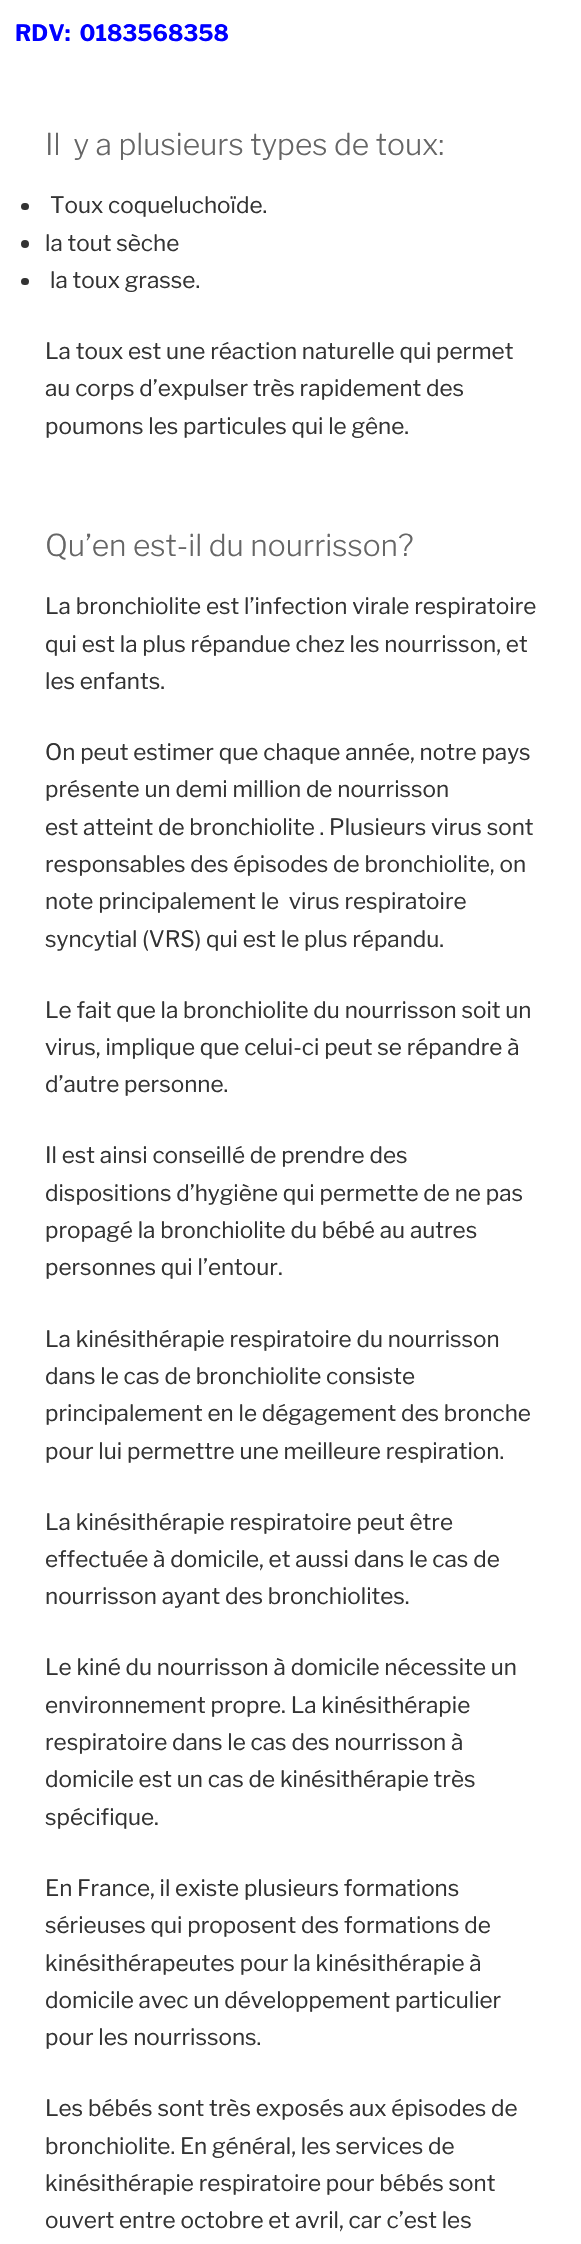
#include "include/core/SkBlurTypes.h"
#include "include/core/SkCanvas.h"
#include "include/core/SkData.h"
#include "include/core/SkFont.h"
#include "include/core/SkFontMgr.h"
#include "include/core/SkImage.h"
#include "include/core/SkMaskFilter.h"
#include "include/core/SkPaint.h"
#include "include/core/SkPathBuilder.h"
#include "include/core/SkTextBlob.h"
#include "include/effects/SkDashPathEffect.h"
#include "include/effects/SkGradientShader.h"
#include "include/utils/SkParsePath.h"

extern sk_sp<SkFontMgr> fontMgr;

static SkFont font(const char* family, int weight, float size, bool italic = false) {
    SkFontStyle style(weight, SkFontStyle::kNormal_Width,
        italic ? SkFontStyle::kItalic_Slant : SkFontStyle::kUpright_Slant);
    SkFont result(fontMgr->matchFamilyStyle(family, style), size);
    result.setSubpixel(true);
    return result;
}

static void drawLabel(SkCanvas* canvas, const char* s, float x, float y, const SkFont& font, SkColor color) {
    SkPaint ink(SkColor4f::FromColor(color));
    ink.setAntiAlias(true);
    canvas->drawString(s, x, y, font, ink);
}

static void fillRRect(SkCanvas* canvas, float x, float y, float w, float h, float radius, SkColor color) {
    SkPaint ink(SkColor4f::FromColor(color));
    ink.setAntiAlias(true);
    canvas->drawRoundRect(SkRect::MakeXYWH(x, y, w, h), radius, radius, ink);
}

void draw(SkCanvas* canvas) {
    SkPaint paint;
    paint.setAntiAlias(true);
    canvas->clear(0xFFFFFFFF);
    SkFont font1 = font("Libre Franklin", 700, 22.5f);
    drawLabel(canvas, "RDV:  0183568358", 15, 41, font1, 0xFF0000FF);
    SkFont font2 = font("Libre Franklin", 300, 30);
    drawLabel(canvas, "Il  y a plusieurs types de toux:", 45, 155, font2, 0xFF666666);
    fillRRect(canvas, 21, 203, 8, 7, 3.5f, 0xFF333333);
    SkFont font3 = font("Libre Franklin", 400, 22.5f);
    drawLabel(canvas, "Toux coqueluchoïde.", 50, 213, font3, 0xFF333333);
    paint.setColor(0xFF333333);
    canvas->drawCircle(25, 244, 4, paint);
    drawLabel(canvas, "la tout sèche", 45, 251, font3, 0xFF333333);
    fillRRect(canvas, 21, 278, 8, 7, 3.5f, 0xFF333333);
    drawLabel(canvas, "la toux grasse.", 50, 288, font3, 0xFF333333);
    drawLabel(canvas, "La toux est une réaction naturelle qui permet", 45, 359, font3, 0xFF333333);
    drawLabel(canvas, "au corps d’expulser très rapidement des", 45, 396, font3, 0xFF333333);
    drawLabel(canvas, "poumons les particules qui le gêne.", 45, 434, font3, 0xFF333333);
    drawLabel(canvas, "Qu’en est-il du nourrisson?", 45, 556, font2, 0xFF666666);
    drawLabel(canvas, "La bronchiolite est l’infection virale respiratoire", 45, 614, font3, 0xFF333333);
    drawLabel(canvas, "qui est la plus répandue chez les nourrisson, et", 45, 652, font3, 0xFF333333);
    drawLabel(canvas, "les enfants.", 45, 689, font3, 0xFF333333);
    drawLabel(canvas, "On peut estimer que chaque année, notre pays", 45, 760, font3, 0xFF333333);
    drawLabel(canvas, "présente un demi million de nourrisson", 45, 797, font3, 0xFF333333);
    drawLabel(canvas, "est atteint de bronchiolite . Plusieurs virus sont", 45, 835, font3, 0xFF333333);
    drawLabel(canvas, "responsables des épisodes de bronchiolite, on", 45, 872, font3, 0xFF333333);
    drawLabel(canvas, "note principalement le  virus respiratoire", 45, 909, font3, 0xFF333333);
    drawLabel(canvas, "syncytial (VRS) qui est le plus répandu.", 45, 947, font3, 0xFF333333);
    drawLabel(canvas, "Le fait que la bronchiolite du nourrisson soit un", 45, 1018, font3, 0xFF333333);
    drawLabel(canvas, "virus, implique que celui-ci peut se répandre à", 45, 1055, font3, 0xFF333333);
    drawLabel(canvas, "d’autre personne.", 45, 1092, font3, 0xFF333333);
    drawLabel(canvas, "Il est ainsi conseillé de prendre des", 45, 1163, font3, 0xFF333333);
    drawLabel(canvas, "dispositions d’hygiène qui permette de ne pas", 45, 1201, font3, 0xFF333333);
    drawLabel(canvas, "propagé la bronchiolite du bébé au autres", 45, 1238, font3, 0xFF333333);
    drawLabel(canvas, "personnes qui l’entour.", 45, 1275, font3, 0xFF333333);
    drawLabel(canvas, "La kinésithérapie respiratoire du nourrisson", 45, 1347, font3, 0xFF333333);
    drawLabel(canvas, "dans le cas de bronchiolite consiste", 45, 1384, font3, 0xFF333333);
    drawLabel(canvas, "principalement en le dégagement des bronche", 45, 1421, font3, 0xFF333333);
    drawLabel(canvas, "pour lui permettre une meilleure respiration.", 45, 1459, font3, 0xFF333333);
    drawLabel(canvas, "La kinésithérapie respiratoire peut être", 45, 1530, font3, 0xFF333333);
    drawLabel(canvas, "effectuée à domicile, et aussi dans le cas de", 45, 1567, font3, 0xFF333333);
    drawLabel(canvas, "nourrisson ayant des bronchiolites.", 45, 1604, font3, 0xFF333333);
    drawLabel(canvas, "Le kiné du nourrisson à domicile nécessite un", 45, 1675, font3, 0xFF333333);
    drawLabel(canvas, "environnement propre. La kinésithérapie", 45, 1713, font3, 0xFF333333);
    drawLabel(canvas, "respiratoire dans le cas des nourrisson à", 45, 1750, font3, 0xFF333333);
    drawLabel(canvas, "domicile est un cas de kinésithérapie très", 45, 1787, font3, 0xFF333333);
    drawLabel(canvas, "spécifique.", 45, 1825, font3, 0xFF333333);
    drawLabel(canvas, "En France, il existe plusieurs formations", 45, 1896, font3, 0xFF333333);
    drawLabel(canvas, "sérieuses qui proposent des formations de", 45, 1933, font3, 0xFF333333);
    drawLabel(canvas, "kinésithérapeutes pour la kinésithérapie à", 45, 1971, font3, 0xFF333333);
    drawLabel(canvas, "domicile avec un développement particulier", 45, 2008, font3, 0xFF333333);
    drawLabel(canvas, "pour les nourrissons.", 45, 2045, font3, 0xFF333333);
    drawLabel(canvas, "Les bébés sont très exposés aux épisodes de", 45, 2116, font3, 0xFF333333);
    drawLabel(canvas, "bronchiolite. En général, les services de", 45, 2154, font3, 0xFF333333);
    drawLabel(canvas, "kinésithérapie respiratoire pour bébés sont", 45, 2191, font3, 0xFF333333);
    drawLabel(canvas, "ouvert entre octobre et avril, car c’est les", 45, 2228, font3, 0xFF333333);
}
